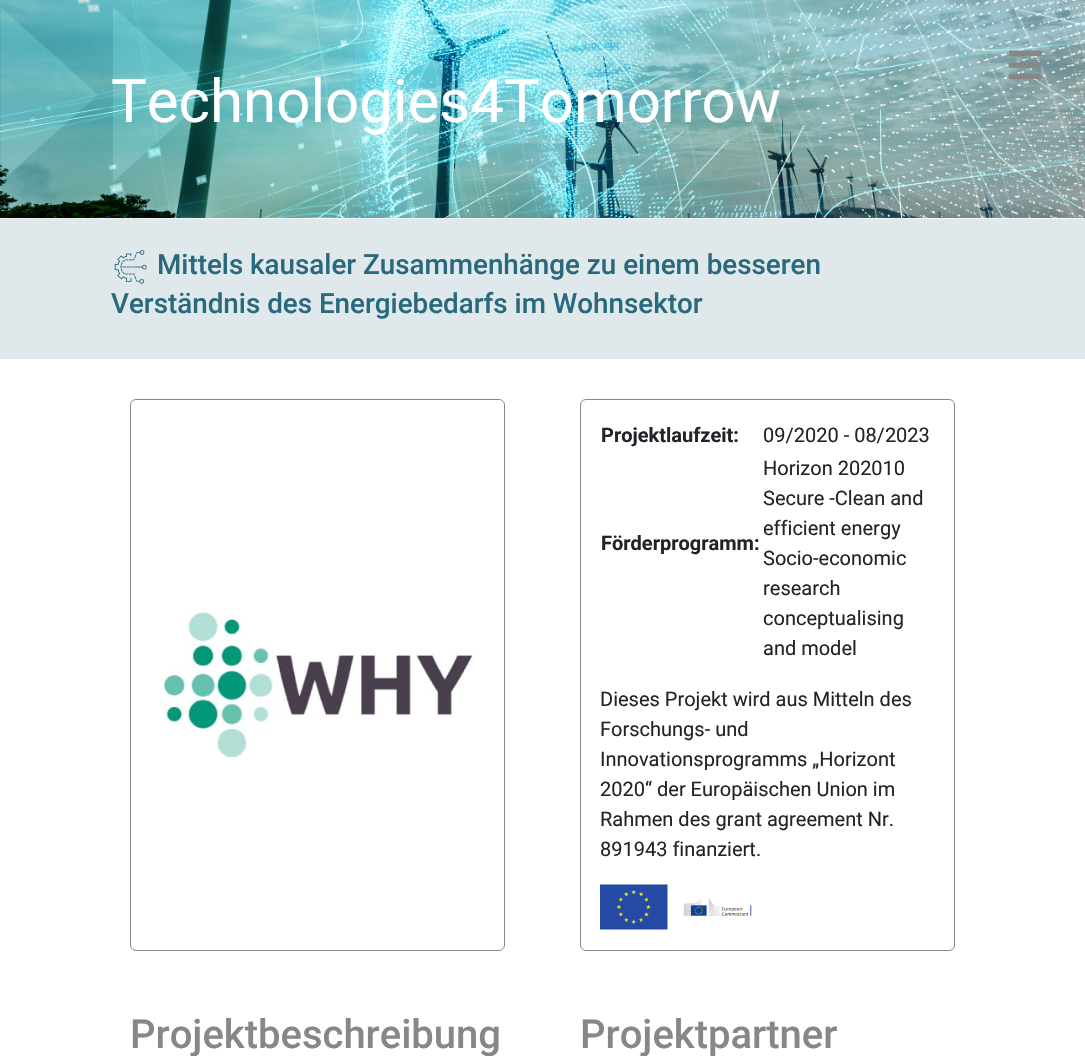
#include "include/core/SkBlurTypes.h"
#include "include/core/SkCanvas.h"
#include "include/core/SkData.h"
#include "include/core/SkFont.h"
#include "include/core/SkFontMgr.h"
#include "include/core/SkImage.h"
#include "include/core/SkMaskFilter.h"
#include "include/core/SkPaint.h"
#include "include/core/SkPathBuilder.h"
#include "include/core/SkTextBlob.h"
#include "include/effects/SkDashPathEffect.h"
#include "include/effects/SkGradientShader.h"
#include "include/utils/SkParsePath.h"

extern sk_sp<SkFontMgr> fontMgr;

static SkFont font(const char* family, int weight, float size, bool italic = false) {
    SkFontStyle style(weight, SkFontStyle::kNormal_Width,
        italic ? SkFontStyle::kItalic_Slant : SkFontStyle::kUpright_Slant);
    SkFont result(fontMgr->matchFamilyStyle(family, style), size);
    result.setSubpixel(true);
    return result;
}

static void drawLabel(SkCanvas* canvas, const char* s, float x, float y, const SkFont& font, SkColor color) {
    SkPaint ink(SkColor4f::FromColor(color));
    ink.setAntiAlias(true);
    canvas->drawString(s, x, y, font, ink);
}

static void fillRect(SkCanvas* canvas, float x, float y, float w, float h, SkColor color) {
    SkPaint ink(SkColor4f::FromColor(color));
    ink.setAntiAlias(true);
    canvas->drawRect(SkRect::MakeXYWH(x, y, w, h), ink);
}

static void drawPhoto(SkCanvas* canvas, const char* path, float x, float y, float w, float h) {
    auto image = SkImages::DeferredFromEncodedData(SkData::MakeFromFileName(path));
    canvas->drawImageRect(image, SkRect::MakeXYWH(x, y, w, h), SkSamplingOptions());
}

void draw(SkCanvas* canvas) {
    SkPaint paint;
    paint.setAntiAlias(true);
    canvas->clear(0xFFFFFFFF);
    drawPhoto(canvas, "assets/img2.png", 0, 0, 1085, 219);
    drawPhoto(canvas, "assets/img1.png", 1008, 50, 34, 30);
    SkFont font1 = font("Roboto", 400, 60);
    drawLabel(canvas, "Technologies4Tomorrow", 111, 122, font1, 0xFFFFFFFF);
    fillRect(canvas, 0, 219, 1085, 140, 0xFFDFE9EB);
    drawPhoto(canvas, "assets/img3.png", 114, 250, 33, 34);
    SkFont font2 = font("Roboto", 500, 27.8f);
    drawLabel(canvas, "Mittels kausaler Zusammenhänge zu einem besseren", 157, 274, font2, 0xFF29697B);
    drawLabel(canvas, "Verständnis des Energiebedarfs im Wohnsektor", 111, 313, font2, 0xFF29697B);
    paint.setStroke(true);
    paint.setStrokeWidth(1);
    paint.setColor(0xFF878786);
    canvas->drawRoundRect(SkRect::MakeXYWH(130.5f, 399.5f, 374, 551), 5.5f, 5.5f, paint);
    drawPhoto(canvas, "assets/img4.png", 164, 612, 309, 146);
    canvas->drawRoundRect(SkRect::MakeXYWH(580.5f, 399.5f, 374, 551), 5.5f, 5.5f, paint);
    SkFont font3 = font("Roboto", 700, 20);
    drawLabel(canvas, "Projektlaufzeit:", 601, 442, font3, 0xFF212529);
    SkFont font4 = font("Roboto", 400, 20);
    drawLabel(canvas, "09/2020 - 08/2023", 763, 442, font4, 0xFF212529);
    drawLabel(canvas, "Förderprogramm:", 601, 550, font3, 0xFF212529);
    drawLabel(canvas, "Horizon 202010", 763, 475, font4, 0xFF212529);
    drawLabel(canvas, "Secure -Clean and", 763, 505, font4, 0xFF212529);
    drawLabel(canvas, "efficient energy", 763, 535, font4, 0xFF212529);
    drawLabel(canvas, "Socio-economic", 763, 565, font4, 0xFF212529);
    drawLabel(canvas, "research", 763, 595, font4, 0xFF212529);
    drawLabel(canvas, "conceptualising", 763, 625, font4, 0xFF212529);
    drawLabel(canvas, "and model", 763, 655, font4, 0xFF212529);
    drawLabel(canvas, "Dieses Projekt wird aus Mitteln des", 600, 706, font4, 0xFF212529);
    drawLabel(canvas, "Forschungs- und", 600, 736, font4, 0xFF212529);
    drawLabel(canvas, "Innovationsprogramms „Horizont", 600, 766, font4, 0xFF212529);
    drawLabel(canvas, "2020“ der Europäischen Union im", 600, 796, font4, 0xFF212529);
    drawLabel(canvas, "Rahmen des grant agreement Nr.", 600, 826, font4, 0xFF212529);
    drawLabel(canvas, "891943 finanziert.", 600, 856, font4, 0xFF212529);
    drawPhoto(canvas, "assets/img5.png", 600, 884, 68, 46);
    drawPhoto(canvas, "assets/img6.png", 683, 898, 69, 18);
    SkFont font5 = font("Roboto", 500, 40);
    drawLabel(canvas, "Projektbeschreibung", 130, 1048, font5, 0xFF878786);
    drawLabel(canvas, "Projektpartner", 580, 1048, font5, 0xFF878786);
}
